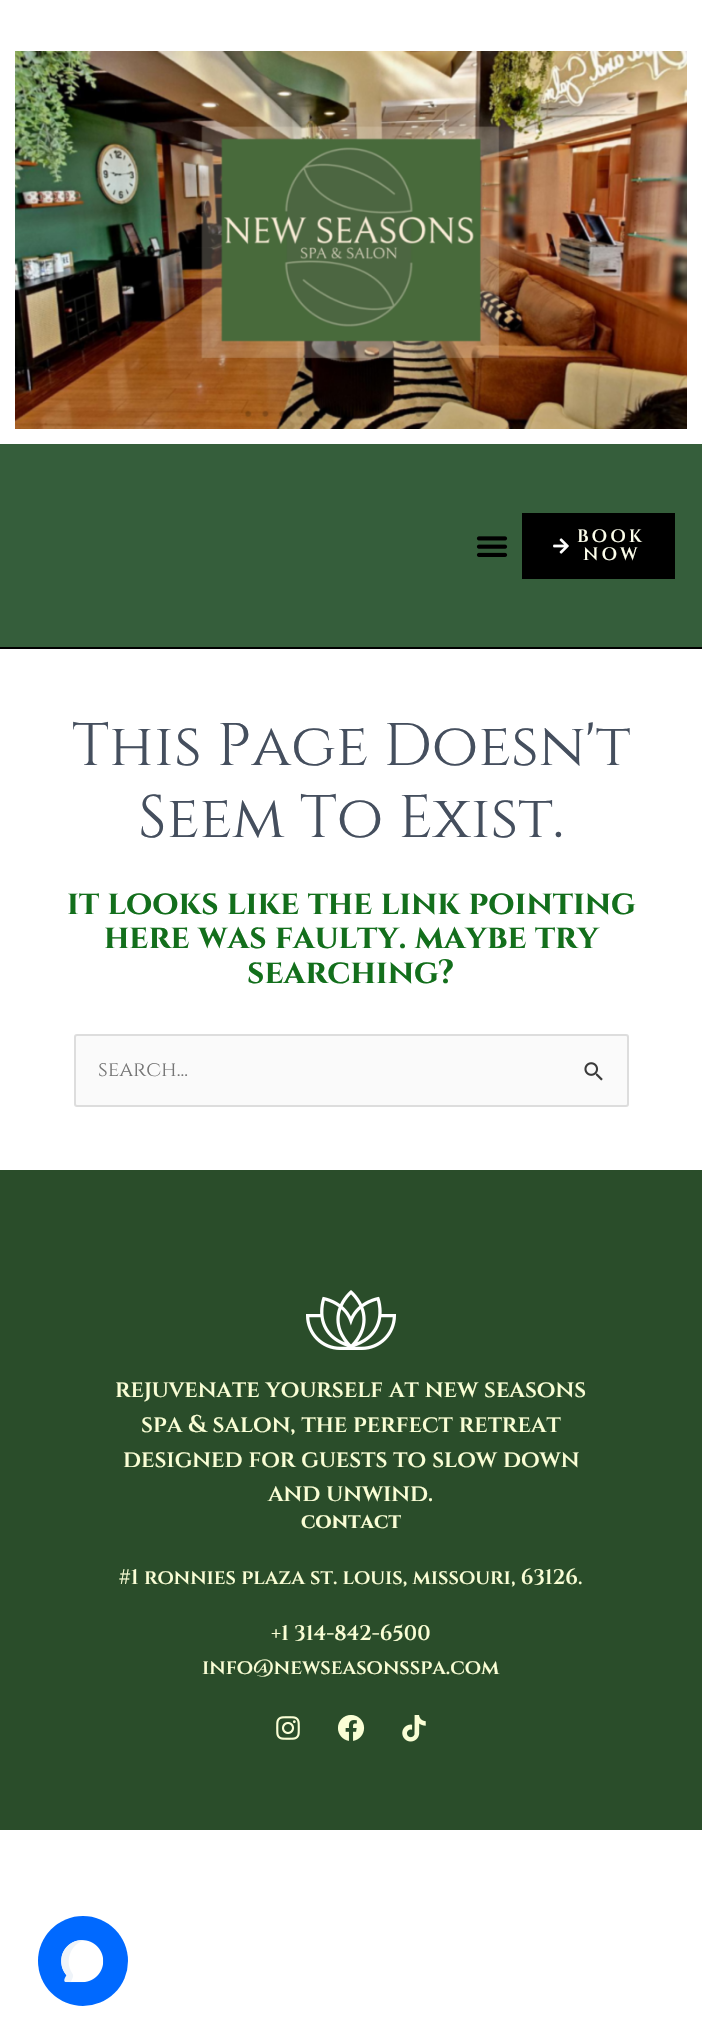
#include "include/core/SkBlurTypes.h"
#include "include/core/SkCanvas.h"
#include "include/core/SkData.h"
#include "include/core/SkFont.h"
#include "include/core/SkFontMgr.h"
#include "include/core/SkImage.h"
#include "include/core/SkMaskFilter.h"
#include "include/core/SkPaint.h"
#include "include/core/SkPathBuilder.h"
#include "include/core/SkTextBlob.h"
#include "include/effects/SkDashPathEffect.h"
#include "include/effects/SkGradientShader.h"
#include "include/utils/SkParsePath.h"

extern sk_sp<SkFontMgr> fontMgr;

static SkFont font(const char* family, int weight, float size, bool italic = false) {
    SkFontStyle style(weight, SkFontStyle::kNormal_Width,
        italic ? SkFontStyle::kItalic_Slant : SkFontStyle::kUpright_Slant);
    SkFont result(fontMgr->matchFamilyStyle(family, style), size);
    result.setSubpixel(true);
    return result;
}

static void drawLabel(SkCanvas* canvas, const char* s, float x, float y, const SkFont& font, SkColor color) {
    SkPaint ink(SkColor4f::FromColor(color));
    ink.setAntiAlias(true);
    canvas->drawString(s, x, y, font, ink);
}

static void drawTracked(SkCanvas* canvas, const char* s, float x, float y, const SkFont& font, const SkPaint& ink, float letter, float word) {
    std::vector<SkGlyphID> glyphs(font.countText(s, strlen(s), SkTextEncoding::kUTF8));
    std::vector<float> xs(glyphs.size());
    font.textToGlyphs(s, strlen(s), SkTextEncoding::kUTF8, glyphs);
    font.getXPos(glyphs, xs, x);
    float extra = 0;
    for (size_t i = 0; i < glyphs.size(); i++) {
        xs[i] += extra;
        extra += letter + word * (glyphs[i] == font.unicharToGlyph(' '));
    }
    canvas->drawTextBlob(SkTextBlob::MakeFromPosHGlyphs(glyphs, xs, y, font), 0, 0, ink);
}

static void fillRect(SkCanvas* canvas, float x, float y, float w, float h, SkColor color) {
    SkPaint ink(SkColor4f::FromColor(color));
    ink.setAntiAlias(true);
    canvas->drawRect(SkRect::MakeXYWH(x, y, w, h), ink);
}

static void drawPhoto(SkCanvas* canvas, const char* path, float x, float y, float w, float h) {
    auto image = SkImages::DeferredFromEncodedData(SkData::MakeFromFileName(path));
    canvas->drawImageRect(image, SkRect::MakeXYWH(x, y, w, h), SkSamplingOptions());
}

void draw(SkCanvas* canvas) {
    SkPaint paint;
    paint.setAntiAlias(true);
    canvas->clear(0xFFFFFFFF);
    drawPhoto(canvas, "assets/img1.png", 15, 51, 672, 378);
    fillRect(canvas, 0, 444, 702, 203, 0xFF355E3B);
    fillRect(canvas, 0, 647, 702, 2, 0xFF000000);
    drawPhoto(canvas, "assets/img2.png", 476, 536, 32, 21);
    fillRect(canvas, 522, 513, 153, 66, 0xFF000000);
    drawPhoto(canvas, "assets/img3.png", 553, 538, 16, 16);
    SkFont font1 = font("Cinzel", 600, 18);
    paint.setColor(0xFFFEFFEC);
    drawTracked(canvas, "BOOK", 577, 542, font1, paint, 3, 0);
    drawTracked(canvas, "NOW", 583, 560, font1, paint, 3, 0);
    SkFont font2 = font("Cinzel", 400, 60);
    drawLabel(canvas, "This Page Doesn't", 72, 765, font2, 0xFF454F5E);
    drawLabel(canvas, "Seem To Exist.", 138, 837, font2, 0xFF454F5E);
    SkFont font3 = font("Cinzel", 700, 33.75f);
    drawLabel(canvas, "it looks like the link pointing", 67, 914, font3, 0xFF136F1C);
    drawLabel(canvas, "here was faulty. maybe try", 104, 948, font3, 0xFF136F1C);
    drawLabel(canvas, "searching?", 247, 983, font3, 0xFF136F1C);
    paint.setColor(0xFFFAFAFA);
    canvas->drawRoundRect(SkRect::MakeXYWH(75, 1035, 553, 71), 2, 2, paint);
    paint.setStroke(true);
    paint.setStrokeWidth(2);
    paint.setColor(0xFFDDDDDD);
    canvas->drawRoundRect(SkRect::MakeXYWH(75, 1035, 553, 71), 2, 2, paint);
    SkFont font4 = font("Cinzel", 400, 21);
    drawLabel(canvas, "search...", 98, 1076, font4, 0xFF757575);
    drawPhoto(canvas, "assets/img4.png", 584, 1062, 19, 19);
    fillRect(canvas, 0, 1170, 702, 660, 0xFF2A4D2A);
    drawPhoto(canvas, "assets/img5.png", 306, 1290, 90, 60);
    SkFont font5 = font("Cinzel", 600, 24);
    drawLabel(canvas, "rejuvenate yourself at new seasons", 115, 1397, font5, 0xFFFAFED5);
    drawLabel(canvas, "spa & salon, the perfect retreat", 141, 1432, font5, 0xFFFAFED5);
    drawLabel(canvas, "designed for guests to slow down", 123, 1467, font5, 0xFFFAFED5);
    drawLabel(canvas, "and unwind.", 268, 1501, font5, 0xFFFAFED5);
    SkFont font6 = font("Cinzel", 700, 21);
    drawLabel(canvas, "contact", 301, 1528, font6, 0xFFFAFED5);
    SkFont font7 = font("Cinzel", 600, 21);
    drawLabel(canvas, "#1 ronnies plaza st. louis, missouri, 63126.", 119, 1584, font7, 0xFFFAFED5);
    drawLabel(canvas, "+1 314-842-6500", 271, 1640, font7, 0xFFFAFED5);
    drawLabel(canvas, "info@newseasonsspa.com", 202, 1674, font7, 0xFFFAFED5);
    drawPhoto(canvas, "assets/img6.png", 276, 1716, 24, 24);
    drawPhoto(canvas, "assets/img7.png", 338, 1715, 27, 26);
    drawPhoto(canvas, "assets/img8.png", 402, 1715, 24, 27);
    paint.setStroke(false);
    paint.setColor(0xFF0069FF);
    canvas->drawCircle(83, 1961, 45, paint);
    drawPhoto(canvas, "assets/img9.png", 61, 1940, 43, 43);
}
